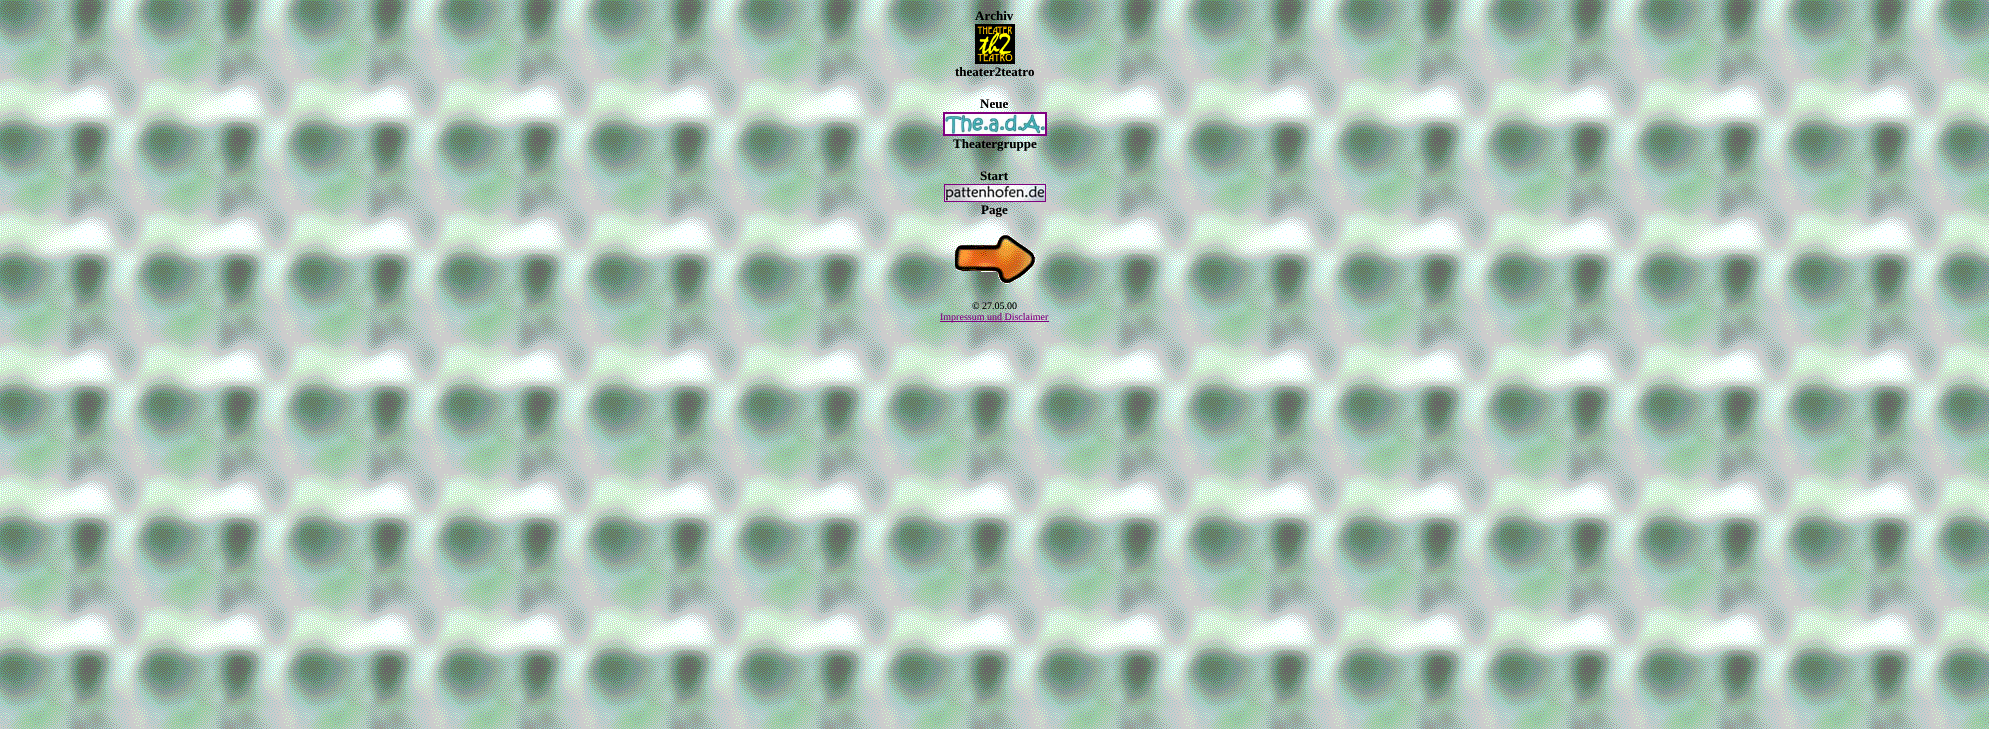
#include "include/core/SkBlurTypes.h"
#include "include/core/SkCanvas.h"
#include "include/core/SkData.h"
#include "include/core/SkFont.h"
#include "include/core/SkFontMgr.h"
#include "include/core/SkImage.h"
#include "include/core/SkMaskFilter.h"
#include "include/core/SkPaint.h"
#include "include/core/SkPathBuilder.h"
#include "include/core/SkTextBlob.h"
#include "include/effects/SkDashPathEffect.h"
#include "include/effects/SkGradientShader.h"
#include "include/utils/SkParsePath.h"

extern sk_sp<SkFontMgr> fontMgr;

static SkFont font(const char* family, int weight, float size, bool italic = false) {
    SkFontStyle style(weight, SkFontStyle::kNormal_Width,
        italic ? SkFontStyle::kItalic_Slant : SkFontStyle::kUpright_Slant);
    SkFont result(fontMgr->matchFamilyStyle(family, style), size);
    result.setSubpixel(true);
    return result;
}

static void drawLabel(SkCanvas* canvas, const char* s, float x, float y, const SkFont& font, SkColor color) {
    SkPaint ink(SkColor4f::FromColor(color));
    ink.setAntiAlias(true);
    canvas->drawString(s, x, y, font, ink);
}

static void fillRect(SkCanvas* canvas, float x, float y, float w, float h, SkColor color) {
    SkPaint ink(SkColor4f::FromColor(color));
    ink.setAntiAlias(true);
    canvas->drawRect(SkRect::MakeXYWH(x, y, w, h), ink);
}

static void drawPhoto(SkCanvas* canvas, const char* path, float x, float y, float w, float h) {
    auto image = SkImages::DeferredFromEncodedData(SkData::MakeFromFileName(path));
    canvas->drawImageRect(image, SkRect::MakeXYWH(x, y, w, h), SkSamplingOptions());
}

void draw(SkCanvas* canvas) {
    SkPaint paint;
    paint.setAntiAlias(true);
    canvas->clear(0xFFFFFFFF);
    drawPhoto(canvas, "assets/img1.png", 0, 0, 1989, 729);
    SkFont font1 = font("Liberation Serif", 700, 13);
    drawLabel(canvas, "Archiv", 975, 20, font1, 0xFF000000);
    drawPhoto(canvas, "assets/img2.png", 975, 24, 40, 40);
    drawLabel(canvas, "theater2teatro", 955, 76, font1, 0xFF000000);
    drawLabel(canvas, "Neue", 980, 108, font1, 0xFF000000);
    paint.setStroke(true);
    paint.setStrokeWidth(2);
    paint.setColor(0xFF800080);
    canvas->drawRect(SkRect::MakeXYWH(944, 113, 102, 22), paint);
    drawPhoto(canvas, "assets/img3.png", 945, 114, 100, 20);
    drawLabel(canvas, "Theatergruppe", 953, 148, font1, 0xFF000000);
    drawLabel(canvas, "Start", 980, 180, font1, 0xFF000000);
    paint.setStrokeWidth(1);
    canvas->drawRect(SkRect::MakeXYWH(944.5f, 184.5f, 101, 17), paint);
    drawPhoto(canvas, "assets/img4.png", 945, 185, 100, 16);
    drawLabel(canvas, "Page", 981, 214, font1, 0xFF000000);
    drawPhoto(canvas, "assets/img5.png", 955, 235, 81, 49);
    SkFont font2 = font("Liberation Serif", 400, 10);
    drawLabel(canvas, "© 27.05.00", 972, 309, font2, 0xFF000000);
    fillRect(canvas, 940, 321, 109, 1, 0xFF800080);
    drawLabel(canvas, "Impressum und Disclaimer", 940, 320, font2, 0xFF800080);
}
